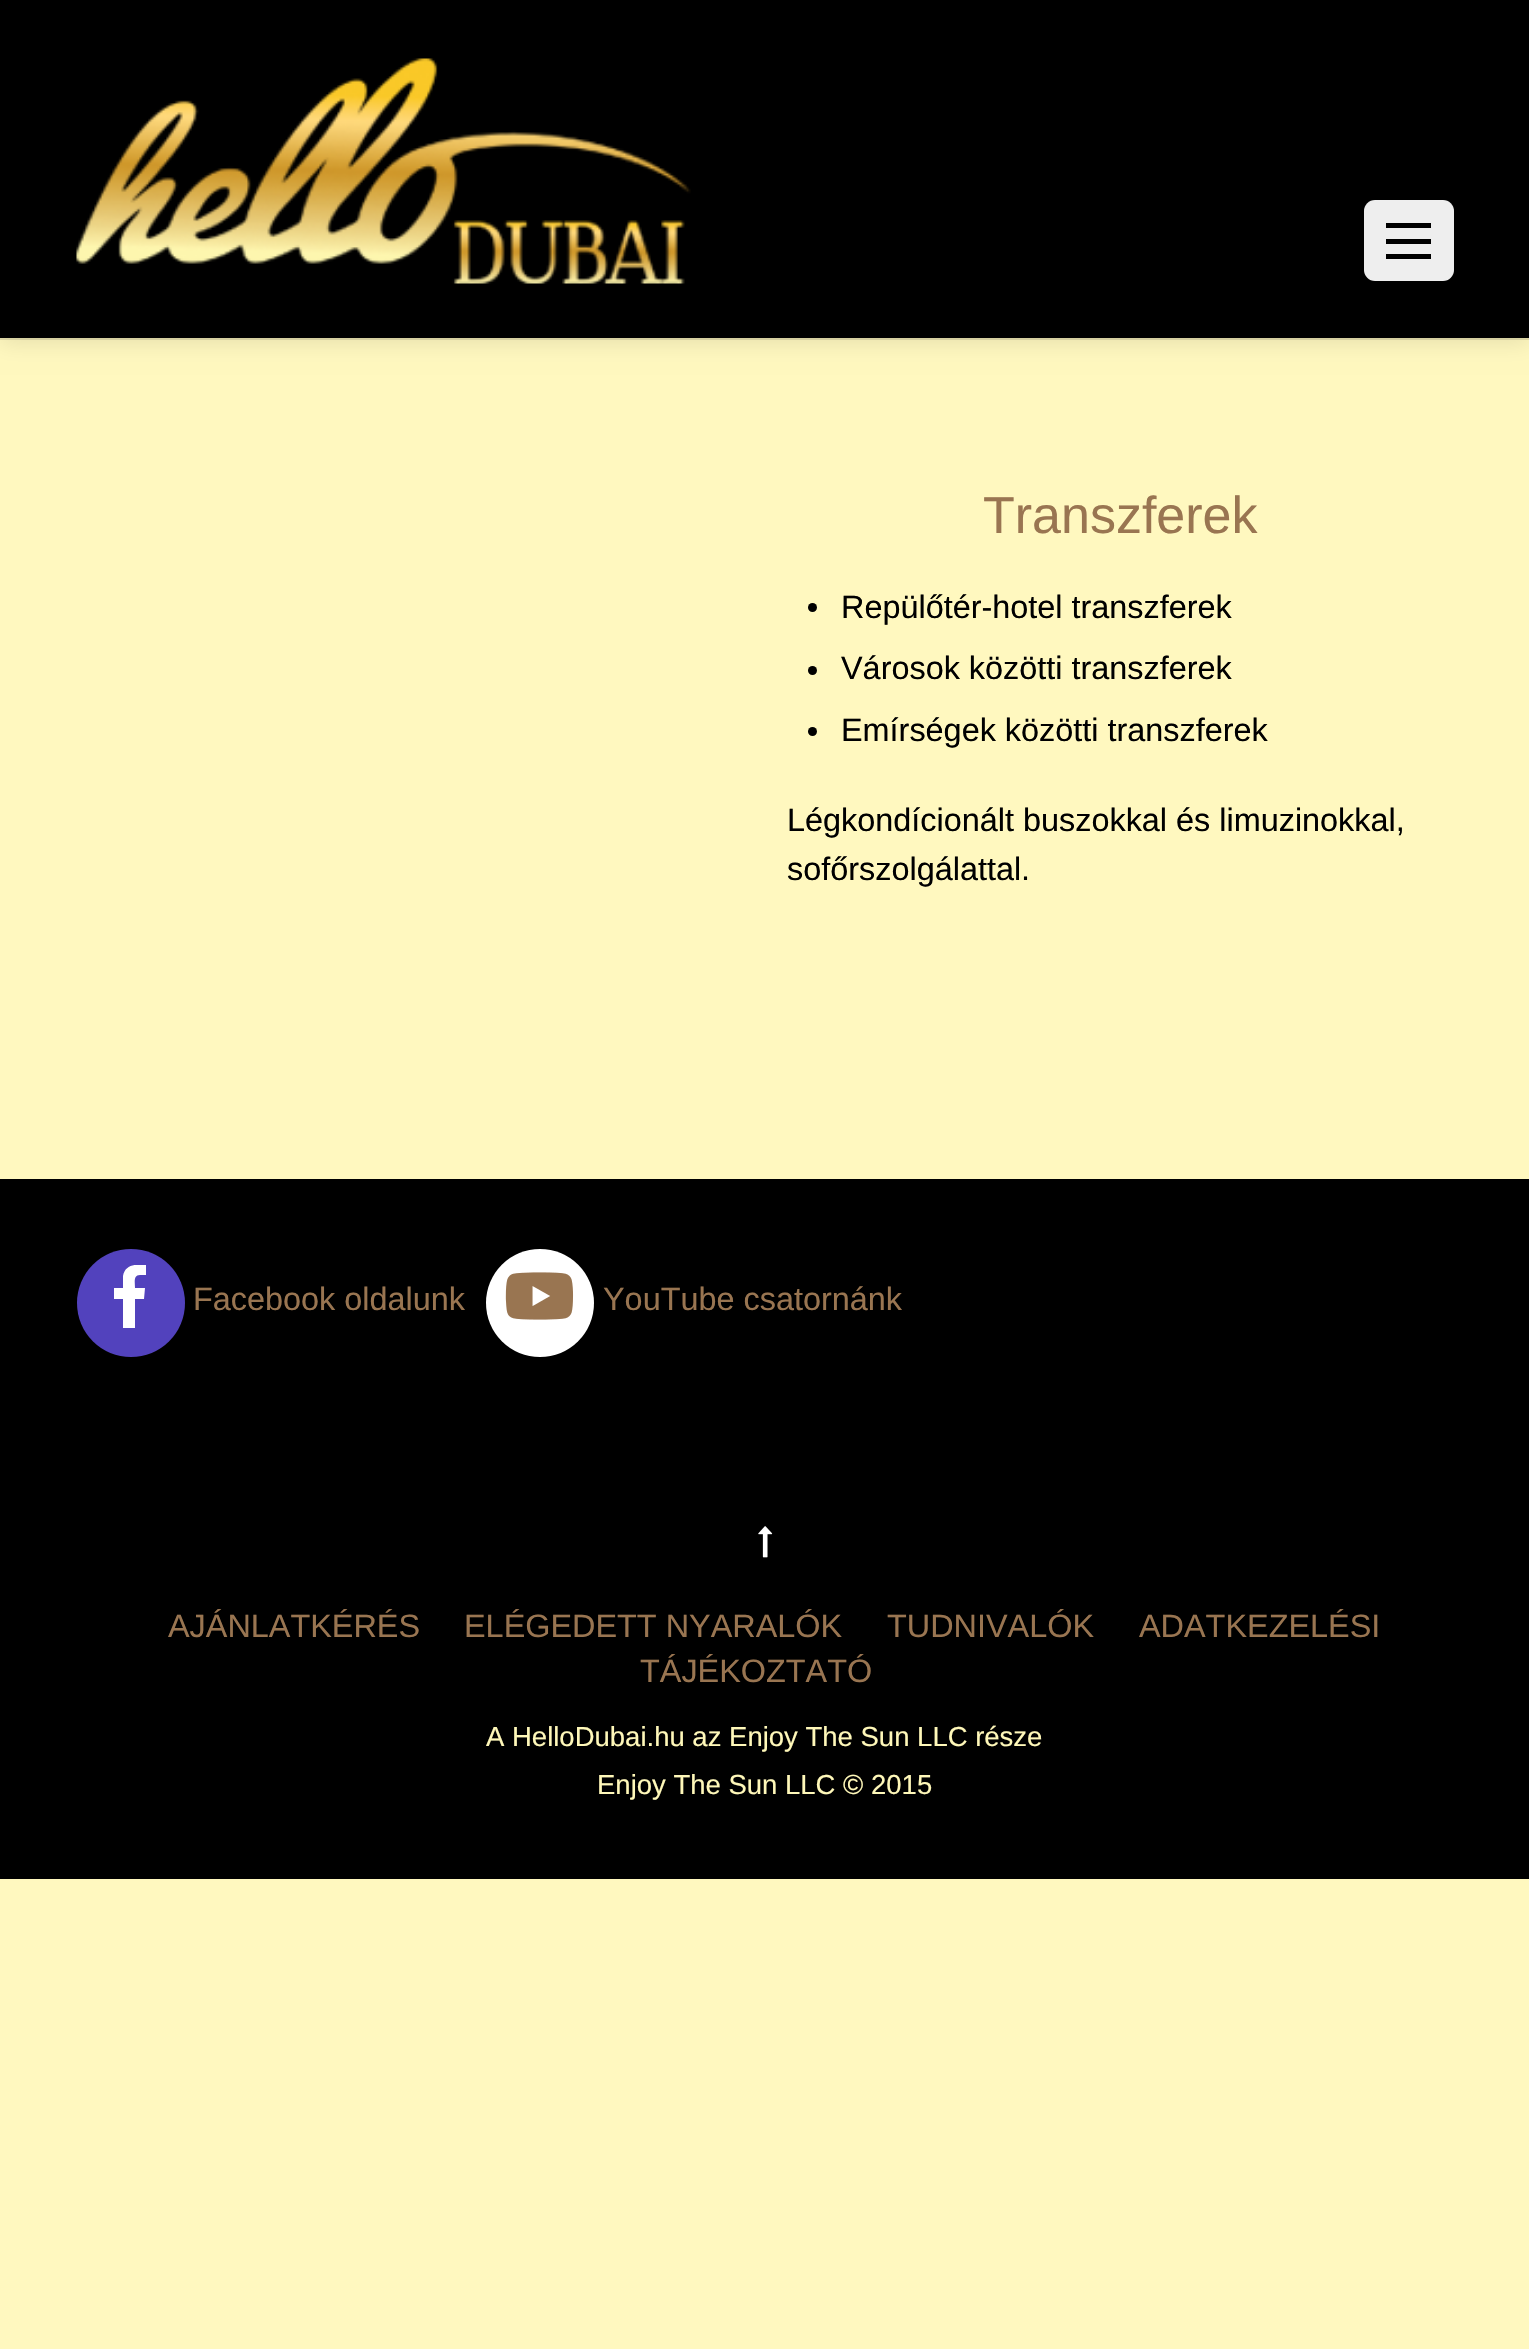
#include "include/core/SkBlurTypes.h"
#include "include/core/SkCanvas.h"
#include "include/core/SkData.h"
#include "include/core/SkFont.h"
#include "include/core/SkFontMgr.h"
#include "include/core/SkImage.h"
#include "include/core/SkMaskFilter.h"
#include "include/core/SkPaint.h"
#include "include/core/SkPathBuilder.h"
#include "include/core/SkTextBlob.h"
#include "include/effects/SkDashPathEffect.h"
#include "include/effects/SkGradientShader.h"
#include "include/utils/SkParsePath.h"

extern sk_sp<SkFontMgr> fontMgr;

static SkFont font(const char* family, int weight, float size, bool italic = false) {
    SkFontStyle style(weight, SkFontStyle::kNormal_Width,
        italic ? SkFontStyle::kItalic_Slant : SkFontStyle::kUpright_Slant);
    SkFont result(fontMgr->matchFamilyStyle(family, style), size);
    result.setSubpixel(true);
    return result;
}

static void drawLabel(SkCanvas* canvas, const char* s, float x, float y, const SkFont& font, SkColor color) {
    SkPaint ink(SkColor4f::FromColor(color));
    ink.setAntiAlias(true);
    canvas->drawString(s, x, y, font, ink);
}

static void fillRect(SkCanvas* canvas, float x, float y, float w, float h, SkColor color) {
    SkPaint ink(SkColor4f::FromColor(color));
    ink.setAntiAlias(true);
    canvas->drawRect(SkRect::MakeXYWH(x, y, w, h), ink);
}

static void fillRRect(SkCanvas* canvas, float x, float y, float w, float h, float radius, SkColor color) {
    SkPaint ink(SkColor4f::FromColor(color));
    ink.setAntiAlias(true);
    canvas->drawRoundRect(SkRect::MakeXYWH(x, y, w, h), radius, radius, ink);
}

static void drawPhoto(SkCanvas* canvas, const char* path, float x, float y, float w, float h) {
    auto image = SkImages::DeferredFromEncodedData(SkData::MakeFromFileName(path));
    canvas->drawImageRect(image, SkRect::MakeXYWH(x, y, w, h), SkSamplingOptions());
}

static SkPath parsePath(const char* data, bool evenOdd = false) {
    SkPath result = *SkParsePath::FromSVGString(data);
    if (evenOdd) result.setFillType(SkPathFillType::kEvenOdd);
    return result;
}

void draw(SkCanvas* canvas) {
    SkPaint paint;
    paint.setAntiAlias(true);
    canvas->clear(0xFFFFF8BF);
    paint.setColor(0x1A000000);
    paint.setMaskFilter(SkMaskFilter::MakeBlur(kNormal_SkBlurStyle, 11));
    canvas->drawRect(SkRect::MakeXYWH(0, 5, 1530, 337), paint);
    paint.setMaskFilter(nullptr);
    paint.setStroke(true);
    paint.setStrokeWidth(2);
    canvas->drawRect(SkRect::MakeXYWH(-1, -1, 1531, 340), paint);
    fillRect(canvas, 0, 0, 1529, 338, 0xFF000000);
    drawPhoto(canvas, "assets/img1.png", 76, 58, 615, 226);
    fillRRect(canvas, 1364, 200, 90, 81, 11, 0xFFEEEEEE);
    fillRect(canvas, 1386, 254, 45, 5, 0xFF000000);
    fillRect(canvas, 1386, 223, 45, 5, 0xFF000000);
    fillRect(canvas, 1386, 239, 45, 5, 0xFF000000);
    SkFont font1 = font("Liberation Sans", 400, 52);
    drawLabel(canvas, "Transzferek", 983, 533, font1, 0xFF997551);
    paint.setStroke(false);
    paint.setColor(0xFF000000);
    canvas->drawCircle(812.5f, 607.5f, 4.5f, paint);
    SkFont font2 = font("Liberation Sans", 400, 32.4f);
    drawLabel(canvas, "Repülőtér-hotel transzferek", 841, 618, font2, 0xFF000000);
    canvas->drawCircle(812.5f, 670.5f, 4.5f, paint);
    drawLabel(canvas, "Városok közötti transzferek", 841, 679, font2, 0xFF000000);
    canvas->drawCircle(812.5f, 731.5f, 4.5f, paint);
    drawLabel(canvas, "Emírségek közötti transzferek", 841, 741, font2, 0xFF000000);
    drawLabel(canvas, "Légkondícionált buszokkal és limuzinokkal,", 787, 831, font2, 0xFF000000);
    drawLabel(canvas, "sofőrszolgálattal.", 787, 880, font2, 0xFF000000);
    fillRect(canvas, 0, 1179, 1529, 700, 0xFF000000);
    paint.setColor(0xFF5242BD);
    canvas->drawCircle(131, 1303, 54, paint);
    canvas->save();
    canvas->clipRect(SkRect::MakeXYWH(99, 1265, 63, 63));
    paint.setColor(0xFFFFFFFF);
    canvas->drawPath(parsePath("M140 1275C133 1275 135 1283 135 1288H145L144 1299H135V1328H123V1299H114V1288H123V1276C125 1264 137 1264 146 1265V1275Z"), paint);
    canvas->restore();
    drawLabel(canvas, "Facebook oldalunk", 193, 1310, font2, 0xFF997551);
    canvas->drawCircle(540, 1303, 54, paint);
    drawPhoto(canvas, "assets/img2.png", 505, 1272, 69, 48);
    drawLabel(canvas, "YouTube csatornánk", 603, 1310, font2, 0xFF997551);
    drawPhoto(canvas, "assets/img3.png", 758, 1526, 15, 32);
    drawLabel(canvas, "AJÁNLATKÉRÉS", 168, 1637, font2, 0xFF997551);
    drawLabel(canvas, "ELÉGEDETT NYARALÓK", 464, 1637, font2, 0xFF997551);
    drawLabel(canvas, "TUDNIVALÓK", 887, 1637, font2, 0xFF997551);
    drawLabel(canvas, "ADATKEZELÉSI", 1139, 1637, font2, 0xFF997551);
    drawLabel(canvas, "TÁJÉKOZTATÓ", 640, 1682, font2, 0xFF997551);
    SkFont font3 = font("Liberation Sans", 400, 27.5f);
    drawLabel(canvas, "A HelloDubai.hu az Enjoy The Sun LLC része", 486, 1746, font3, 0xFFFFF8B9);
    drawLabel(canvas, "Enjoy The Sun LLC © 2015", 597, 1794, font3, 0xFFFFF8B9);
}
